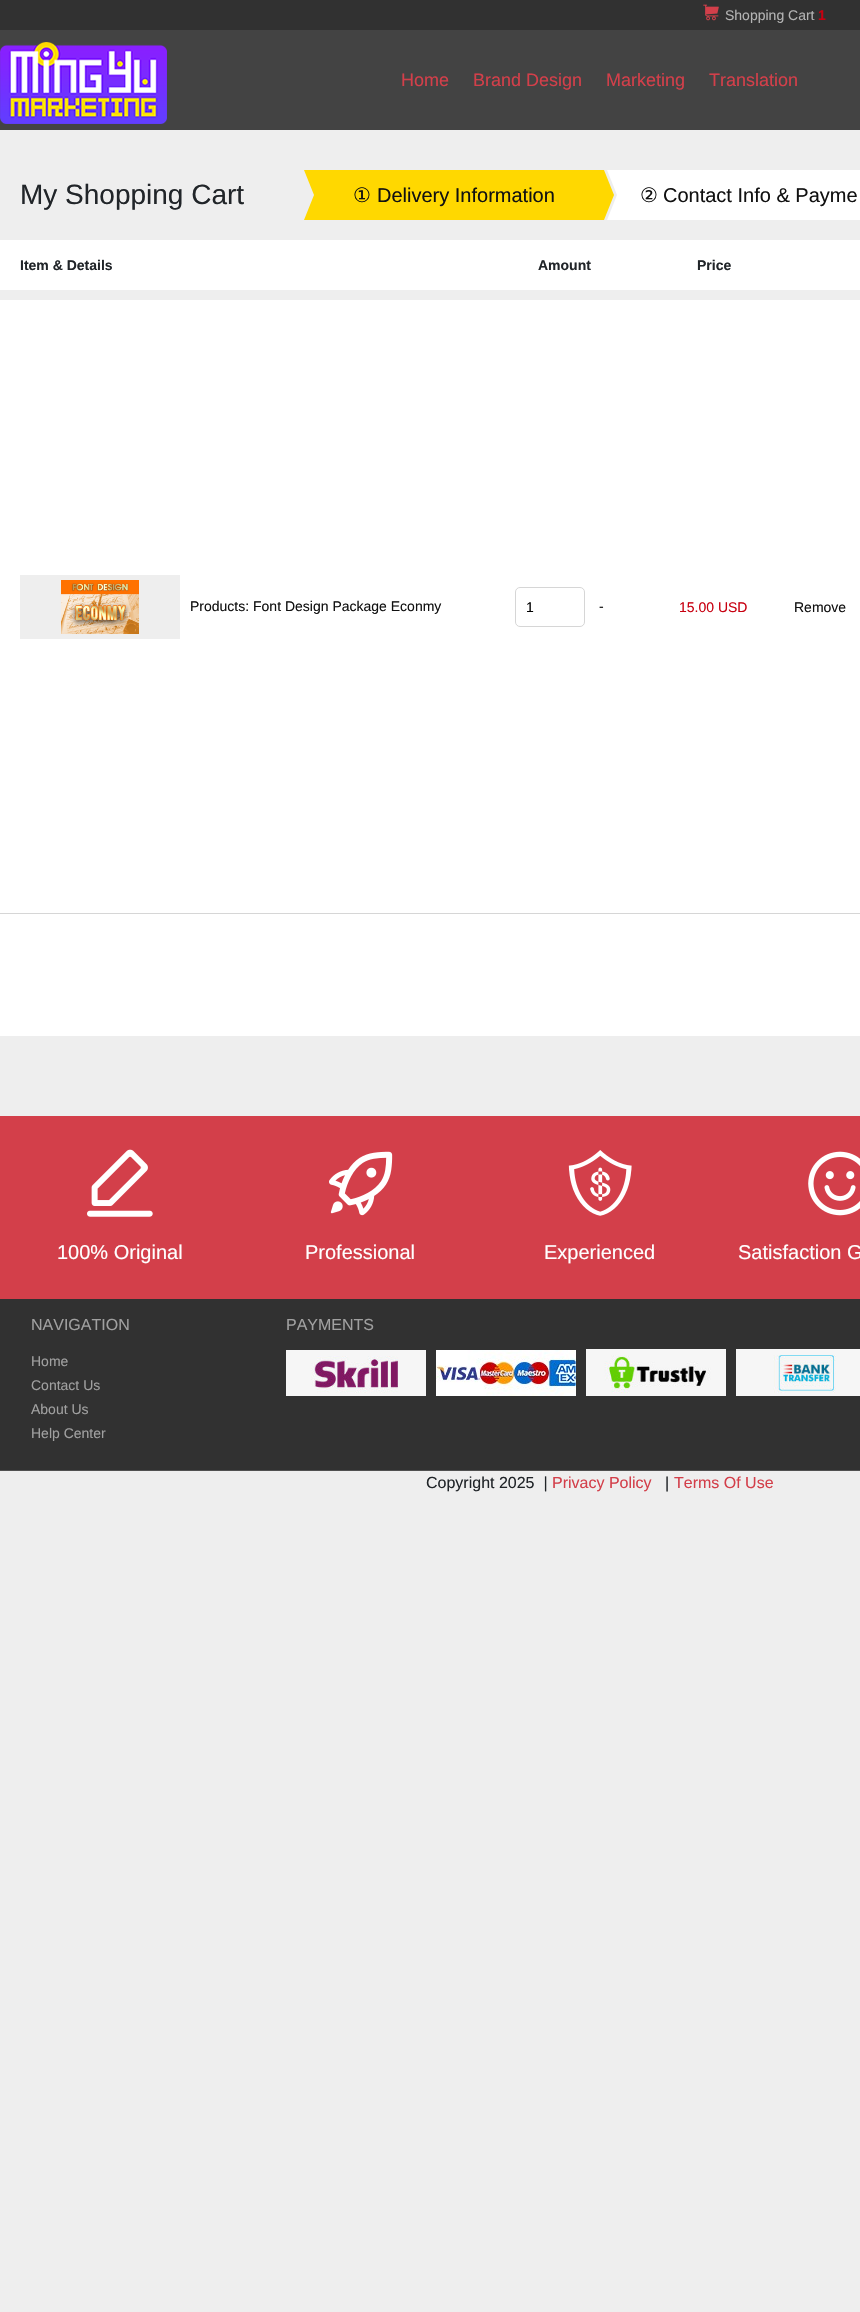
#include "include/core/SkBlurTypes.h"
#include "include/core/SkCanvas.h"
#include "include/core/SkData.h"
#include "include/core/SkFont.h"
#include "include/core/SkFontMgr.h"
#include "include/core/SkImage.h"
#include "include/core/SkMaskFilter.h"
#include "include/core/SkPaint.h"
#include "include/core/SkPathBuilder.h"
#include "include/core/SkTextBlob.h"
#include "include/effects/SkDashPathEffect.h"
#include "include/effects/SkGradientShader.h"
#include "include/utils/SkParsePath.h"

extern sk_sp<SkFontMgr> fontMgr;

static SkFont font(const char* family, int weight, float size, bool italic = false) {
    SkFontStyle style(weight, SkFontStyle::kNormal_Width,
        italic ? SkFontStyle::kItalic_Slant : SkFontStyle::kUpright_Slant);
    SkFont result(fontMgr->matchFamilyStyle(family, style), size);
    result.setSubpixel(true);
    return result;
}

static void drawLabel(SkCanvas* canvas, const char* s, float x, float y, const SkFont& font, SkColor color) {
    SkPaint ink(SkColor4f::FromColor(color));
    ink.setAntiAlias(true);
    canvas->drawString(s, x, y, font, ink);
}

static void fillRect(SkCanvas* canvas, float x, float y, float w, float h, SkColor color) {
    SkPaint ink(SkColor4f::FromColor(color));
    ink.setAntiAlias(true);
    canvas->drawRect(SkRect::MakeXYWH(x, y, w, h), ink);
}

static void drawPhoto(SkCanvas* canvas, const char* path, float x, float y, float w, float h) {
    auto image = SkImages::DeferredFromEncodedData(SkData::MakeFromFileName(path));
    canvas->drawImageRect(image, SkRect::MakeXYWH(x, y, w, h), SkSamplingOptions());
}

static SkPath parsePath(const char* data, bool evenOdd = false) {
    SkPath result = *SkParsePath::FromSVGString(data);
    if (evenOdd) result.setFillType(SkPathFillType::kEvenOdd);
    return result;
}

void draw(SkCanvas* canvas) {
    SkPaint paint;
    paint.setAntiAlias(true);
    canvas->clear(0xFFEEEEEE);
    fillRect(canvas, 0, 0, 860, 30, 0xFF313131);
    drawPhoto(canvas, "assets/img1.png", 703, 4, 16, 17);
    SkFont font1 = font("Liberation Sans", 400, 14);
    drawLabel(canvas, "Shopping Cart", 725, 20, font1, 0xFFB3B3B3);
    SkFont font2 = font("Liberation Sans", 700, 14);
    drawLabel(canvas, "1", 818, 20, font2, 0xFFC80010);
    fillRect(canvas, 0, 30, 860, 100, 0xFF434343);
    drawPhoto(canvas, "assets/img2.png", 0, 42, 167, 82);
    SkFont font3 = font("Liberation Sans", 400, 18);
    drawLabel(canvas, "Home", 401, 86, font3, 0xFFD33F4A);
    drawLabel(canvas, "Brand Design", 473, 86, font3, 0xFFD33F4A);
    drawLabel(canvas, "Marketing", 606, 86, font3, 0xFFD33F4A);
    drawLabel(canvas, "Translation", 709, 86, font3, 0xFFD33F4A);
    SkFont font4 = font("Liberation Sans", 400, 28);
    drawLabel(canvas, "My Shopping Cart", 20, 204, font4, 0xFF212529);
    fillRect(canvas, 304, 170, 300, 50, 0xFFFFD800);
    paint.setColor(0xFFEEEEEE);
    canvas->drawPath(parsePath("M304 220V170L314 195Z"), paint);
    SkFont font5 = font("DejaVu Sans", 400, 20);
    drawLabel(canvas, "①", 353, 202, font5, 0xFF111111);
    SkFont font6 = font("Liberation Sans", 400, 20);
    drawLabel(canvas, "Delivery Information", 377, 202, font6, 0xFF111111);
    fillRect(canvas, 607, 170, 253, 50, 0xFFFFFFFF);
    canvas->drawPath(parsePath("M607 220V170L617 195Z"), paint);
    paint.setColor(0xFFFFD800);
    canvas->drawPath(parsePath("M604 220V170L614 195Z"), paint);
    drawLabel(canvas, "②", 640, 202, font5, 0xFF111111);
    drawLabel(canvas, "Contact Info & Payme", 663, 202, font6, 0xFF111111);
    fillRect(canvas, 0, 240, 860, 50, 0xFFFFFFFF);
    drawLabel(canvas, "Item & Details", 20, 270, font2, 0xFF212529);
    drawLabel(canvas, "Amount", 538, 270, font2, 0xFF212529);
    drawLabel(canvas, "Price", 697, 270, font2, 0xFF212529);
    fillRect(canvas, 0, 300, 860, 613, 0xFFFFFFFF);
    fillRect(canvas, 20, 575, 160, 64, 0xFFEEEEEE);
    drawPhoto(canvas, "assets/img3.png", 61, 580, 78, 54);
    drawLabel(canvas, "Products: Font Design Package Econmy", 190, 611, font1, 0xFF111111);
    paint.setStroke(true);
    paint.setStrokeWidth(1);
    paint.setColor(0xFFD6D6D6);
    canvas->drawRoundRect(SkRect::MakeXYWH(515.5f, 587.5f, 69, 39), 4.5f, 4.5f, paint);
    drawLabel(canvas, "1", 526, 612, font1, 0xFF000000);
    drawLabel(canvas, "-", 599, 611, font1, 0xFF111111);
    drawLabel(canvas, "15.00 USD", 679, 612, font1, 0xFFC80010);
    fillRect(canvas, 0, 913, 860, 1, 0xFFD6D6D6);
    drawLabel(canvas, "Remove", 794, 612, font1, 0xFF111111);
    fillRect(canvas, 0, 914, 860, 122, 0xFFFFFFFF);
    fillRect(canvas, 0, 1116, 860, 183, 0xFFD33F4A);
    drawPhoto(canvas, "assets/img4.png", 87, 1149, 66, 68);
    drawLabel(canvas, "100% Original", 57, 1259, font6, 0xFFFFFFFF);
    drawPhoto(canvas, "assets/img5.png", 329, 1151, 64, 65);
    drawLabel(canvas, "Professional", 305, 1259, font6, 0xFFFFFFFF);
    drawPhoto(canvas, "assets/img6.png", 568, 1150, 64, 66);
    drawLabel(canvas, "Experienced", 544, 1259, font6, 0xFFFFFFFF);
    drawPhoto(canvas, "assets/img7.png", 808, 1151, 52, 65);
    drawLabel(canvas, "Satisfaction G", 738, 1259, font6, 0xFFFFFFFF);
    fillRect(canvas, 0, 1299, 860, 171, 0xFF313131);
    fillRect(canvas, 0, 1470, 860, 1, 0xFF505050);
    SkFont font7 = font("Liberation Sans", 400, 16);
    drawLabel(canvas, "NAVIGATION", 31, 1330, font7, 0xFFA0A0A0);
    drawLabel(canvas, "Home", 31, 1366, font1, 0xFFA0A0A0);
    drawLabel(canvas, "Contact Us", 31, 1390, font1, 0xFFA0A0A0);
    drawLabel(canvas, "About Us", 31, 1414, font1, 0xFFA0A0A0);
    drawLabel(canvas, "Help Center", 31, 1438, font1, 0xFFA0A0A0);
    drawLabel(canvas, "PAYMENTS", 286, 1330, font7, 0xFFA0A0A0);
    drawPhoto(canvas, "assets/img8.png", 286, 1350, 140, 46);
    drawPhoto(canvas, "assets/img9.png", 436, 1350, 140, 46);
    drawPhoto(canvas, "assets/img10.png", 586, 1349, 140, 47);
    drawPhoto(canvas, "assets/img11.png", 736, 1349, 124, 47);
    drawLabel(canvas, "Copyright 2025  |", 426, 1488, font7, 0xFF212529);
    drawLabel(canvas, "Privacy Policy", 552, 1488, font7, 0xFFD33F4A);
    drawLabel(canvas, "|", 665, 1488, font7, 0xFF212529);
    drawLabel(canvas, "Terms Of Use", 674, 1488, font7, 0xFFD33F4A);
}
